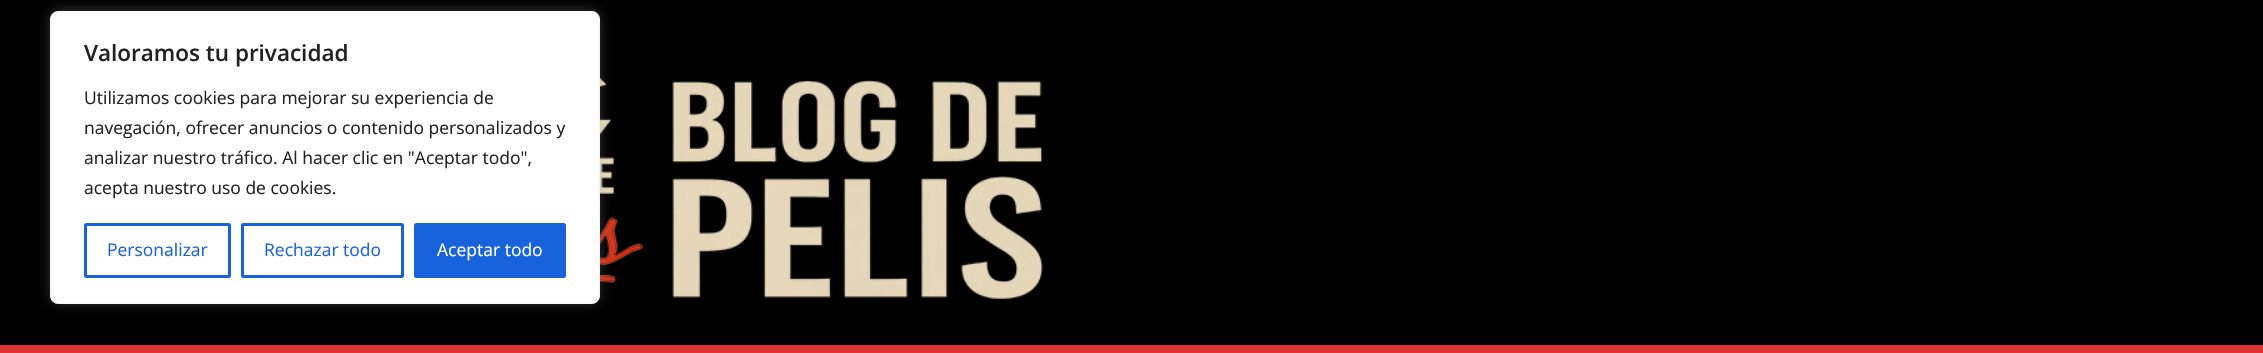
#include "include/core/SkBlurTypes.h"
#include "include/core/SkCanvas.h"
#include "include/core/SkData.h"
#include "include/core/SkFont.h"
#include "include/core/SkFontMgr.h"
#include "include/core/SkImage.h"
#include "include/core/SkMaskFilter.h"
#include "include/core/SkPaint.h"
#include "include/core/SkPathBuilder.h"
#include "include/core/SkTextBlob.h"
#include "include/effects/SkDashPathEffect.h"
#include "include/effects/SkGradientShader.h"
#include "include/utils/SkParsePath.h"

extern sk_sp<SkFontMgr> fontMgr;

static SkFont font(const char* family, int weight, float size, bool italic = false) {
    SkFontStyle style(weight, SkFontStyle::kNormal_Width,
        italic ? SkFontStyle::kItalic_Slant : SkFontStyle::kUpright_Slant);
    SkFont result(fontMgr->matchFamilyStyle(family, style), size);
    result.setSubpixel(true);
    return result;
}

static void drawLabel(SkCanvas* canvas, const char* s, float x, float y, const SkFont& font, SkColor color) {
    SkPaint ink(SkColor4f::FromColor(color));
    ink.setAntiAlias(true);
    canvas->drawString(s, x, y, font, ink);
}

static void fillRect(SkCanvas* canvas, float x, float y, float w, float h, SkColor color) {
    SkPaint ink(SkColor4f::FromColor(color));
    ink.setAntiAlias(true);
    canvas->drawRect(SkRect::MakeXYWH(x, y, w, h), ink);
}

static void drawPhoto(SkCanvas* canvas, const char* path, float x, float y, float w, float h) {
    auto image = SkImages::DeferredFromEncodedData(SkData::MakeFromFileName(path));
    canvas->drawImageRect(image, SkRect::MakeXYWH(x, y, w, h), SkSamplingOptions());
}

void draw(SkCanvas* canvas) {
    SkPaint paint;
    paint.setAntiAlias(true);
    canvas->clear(0xFF000000);
    drawPhoto(canvas, "assets/img1.png", 600, 77, 443, 222);
    paint.setColor(0x4DACABAB);
    paint.setMaskFilter(SkMaskFilter::MakeBlur(kNormal_SkBlurStyle, 6));
    canvas->drawRoundRect(SkRect::MakeXYWH(50, 10, 550, 293), 8, 8, paint);
    paint.setMaskFilter(nullptr);
    paint.setColor(0xFFFFFFFF);
    canvas->drawRoundRect(SkRect::MakeXYWH(50.5f, 11.5f, 549, 292), 7.5f, 7.5f, paint);
    paint.setStroke(true);
    paint.setStrokeWidth(1);
    paint.setColor(0xFFF4F4F4);
    canvas->drawRoundRect(SkRect::MakeXYWH(50.5f, 11.5f, 549, 292), 7.5f, 7.5f, paint);
    SkFont font1 = font("Open Sans", 600, 22.5f);
    drawLabel(canvas, "Valoramos tu privacidad", 84, 61, font1, 0xFF212121);
    SkFont font2 = font("Open Sans", 400, 17.5f);
    drawLabel(canvas, "Utilizamos cookies para mejorar su experiencia de", 84, 104, font2, 0xFF212121);
    drawLabel(canvas, "navegación, ofrecer anuncios o contenido personalizados y", 84, 134, font2, 0xFF212121);
    drawLabel(canvas, "analizar nuestro tráfico. Al hacer clic en \"Aceptar todo\",", 84, 164, font2, 0xFF212121);
    drawLabel(canvas, "acepta nuestro uso de cookies.", 84, 194, font2, 0xFF212121);
    paint.setStrokeWidth(3);
    paint.setColor(0xFF1863DC);
    canvas->drawRoundRect(SkRect::MakeXYWH(85.5f, 224.5f, 144, 52), 1, 1, paint);
    drawLabel(canvas, "Personalizar", 107, 256, font2, 0xFF1863DC);
    canvas->drawRoundRect(SkRect::MakeXYWH(242.5f, 224.5f, 160, 52), 1, 1, paint);
    drawLabel(canvas, "Rechazar todo", 264, 256, font2, 0xFF1863DC);
    paint.setStroke(false);
    canvas->drawRoundRect(SkRect::MakeXYWH(415.5f, 224.5f, 149, 52), 1, 1, paint);
    paint.setStroke(true);
    canvas->drawRoundRect(SkRect::MakeXYWH(415.5f, 224.5f, 149, 52), 1, 1, paint);
    drawLabel(canvas, "Aceptar todo", 437, 256, font2, 0xFFFFFFFF);
    fillRect(canvas, 0, 345, 2263, 8, 0xFFDD3333);
}
